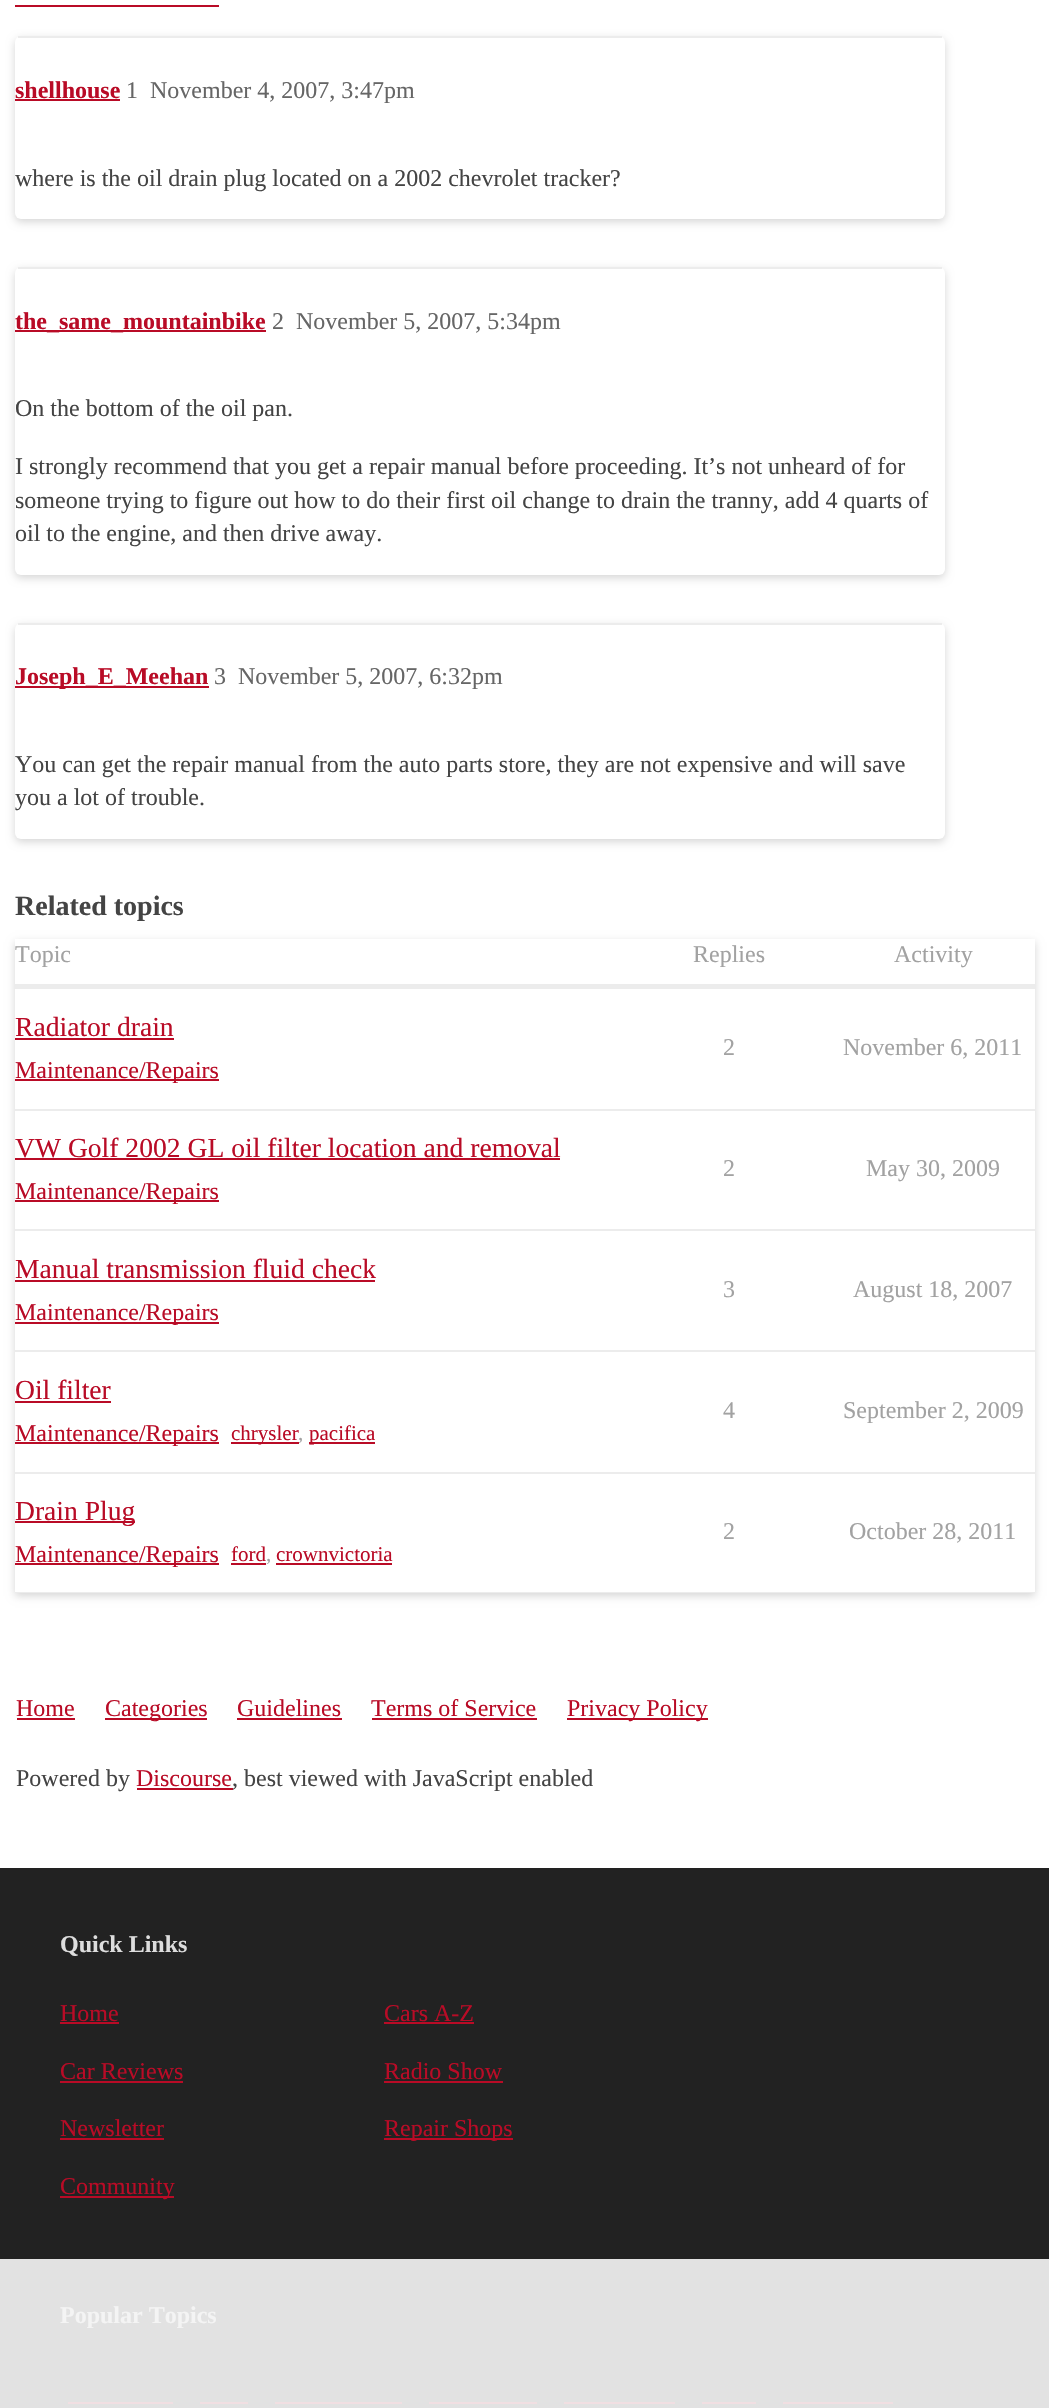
#include "include/core/SkBlurTypes.h"
#include "include/core/SkCanvas.h"
#include "include/core/SkData.h"
#include "include/core/SkFont.h"
#include "include/core/SkFontMgr.h"
#include "include/core/SkImage.h"
#include "include/core/SkMaskFilter.h"
#include "include/core/SkPaint.h"
#include "include/core/SkPathBuilder.h"
#include "include/core/SkTextBlob.h"
#include "include/effects/SkDashPathEffect.h"
#include "include/effects/SkGradientShader.h"
#include "include/utils/SkParsePath.h"

extern sk_sp<SkFontMgr> fontMgr;

static SkFont font(const char* family, int weight, float size, bool italic = false) {
    SkFontStyle style(weight, SkFontStyle::kNormal_Width,
        italic ? SkFontStyle::kItalic_Slant : SkFontStyle::kUpright_Slant);
    SkFont result(fontMgr->matchFamilyStyle(family, style), size);
    result.setSubpixel(true);
    return result;
}

static void drawLabel(SkCanvas* canvas, const char* s, float x, float y, const SkFont& font, SkColor color) {
    SkPaint ink(SkColor4f::FromColor(color));
    ink.setAntiAlias(true);
    canvas->drawString(s, x, y, font, ink);
}

static void fillRect(SkCanvas* canvas, float x, float y, float w, float h, SkColor color) {
    SkPaint ink(SkColor4f::FromColor(color));
    ink.setAntiAlias(true);
    canvas->drawRect(SkRect::MakeXYWH(x, y, w, h), ink);
}

static void fillRRect(SkCanvas* canvas, float x, float y, float w, float h, float radius, SkColor color) {
    SkPaint ink(SkColor4f::FromColor(color));
    ink.setAntiAlias(true);
    canvas->drawRoundRect(SkRect::MakeXYWH(x, y, w, h), radius, radius, ink);
}

static SkPath parsePath(const char* data, bool evenOdd = false) {
    SkPath result = *SkParsePath::FromSVGString(data);
    if (evenOdd) result.setFillType(SkPathFillType::kEvenOdd);
    return result;
}

void draw(SkCanvas* canvas) {
    SkPaint paint;
    paint.setAntiAlias(true);
    canvas->clear(0xFFFFFFFF);
    fillRect(canvas, 15, 5, 204, 2, 0xFFB90B26);
    paint.setColor(0x29000000);
    paint.setMaskFilter(SkMaskFilter::MakeBlur(kNormal_SkBlurStyle, 4));
    canvas->drawRoundRect(SkRect::MakeXYWH(15, 39, 930, 183), 6, 6, paint);
    paint.setMaskFilter(nullptr);
    fillRRect(canvas, 15, 36, 930, 183, 6, 0xFFFFFFFF);
    fillRect(canvas, 18, 36, 924, 2, 0xFFECECEC);
    SkFont font1 = font("Liberation Serif", 700, 24);
    drawLabel(canvas, "shellhouse", 15, 98, font1, 0xFFB90B26);
    fillRect(canvas, 15, 99, 105, 2, 0xFFB90B26);
    SkFont font2 = font("Liberation Serif", 400, 24);
    drawLabel(canvas, "1", 126, 98, font2, 0xFF666666);
    drawLabel(canvas, "November 4, 2007, 3:47pm", 150, 98, font2, 0xFF666666);
    drawLabel(canvas, "where is the oil drain plug located on a 2002 chevrolet tracker?", 15, 186, font2, 0xFF444444);
    paint.setMaskFilter(SkMaskFilter::MakeBlur(kNormal_SkBlurStyle, 4));
    canvas->drawRoundRect(SkRect::MakeXYWH(15, 270, 930, 308), 6, 6, paint);
    paint.setMaskFilter(nullptr);
    fillRRect(canvas, 15, 267, 930, 308, 6, 0xFFFFFFFF);
    fillRect(canvas, 18, 267, 924, 2, 0xFFECECEC);
    fillRect(canvas, 15, 330, 251, 2, 0xFFB90B26);
    drawLabel(canvas, "the_same_mountainbike", 15, 329, font1, 0xFFB90B26);
    drawLabel(canvas, "2", 272, 329, font2, 0xFF666666);
    drawLabel(canvas, "November 5, 2007, 5:34pm", 296, 329, font2, 0xFF666666);
    drawLabel(canvas, "On the bottom of the oil pan.", 15, 416, font2, 0xFF444444);
    drawLabel(canvas, "I strongly recommend that you get a repair manual before proceeding. It’s not unheard of for", 15, 474, font2, 0xFF444444);
    drawLabel(canvas, "someone trying to figure out how to do their first oil change to drain the tranny, add 4 quarts of", 15, 508, font2, 0xFF444444);
    drawLabel(canvas, "oil to the engine, and then drive away.", 15, 541, font2, 0xFF444444);
    paint.setMaskFilter(SkMaskFilter::MakeBlur(kNormal_SkBlurStyle, 4));
    canvas->drawRoundRect(SkRect::MakeXYWH(15, 626, 930, 216), 6, 6, paint);
    paint.setMaskFilter(nullptr);
    fillRRect(canvas, 15, 623, 930, 216, 6, 0xFFFFFFFF);
    fillRect(canvas, 18, 623, 924, 2, 0xFFECECEC);
    fillRect(canvas, 15, 686, 194, 2, 0xFFB90B26);
    drawLabel(canvas, "Joseph_E_Meehan", 15, 684, font1, 0xFFB90B26);
    drawLabel(canvas, "3", 214, 684, font2, 0xFF666666);
    drawLabel(canvas, "November 5, 2007, 6:32pm", 238, 684, font2, 0xFF666666);
    drawLabel(canvas, "You can get the repair manual from the auto parts store, they are not expensive and will save", 15, 772, font2, 0xFF444444);
    drawLabel(canvas, "you a lot of trouble.", 15, 805, font2, 0xFF444444);
    SkFont font3 = font("Liberation Serif", 700, 28);
    drawLabel(canvas, "Related topics", 15, 915, font3, 0xFF444444);
    canvas->save();
    canvas->clipPath(parsePath("M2 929H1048V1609H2ZM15 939H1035V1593H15Z", true), true);
    paint.setMaskFilter(SkMaskFilter::MakeBlur(kNormal_SkBlurStyle, 4));
    canvas->drawRect(SkRect::MakeXYWH(15, 942, 1020, 654), paint);
    paint.setMaskFilter(nullptr);
    canvas->restore();
    drawLabel(canvas, "Topic", 15, 962, font2, 0xFFA2A2A2);
    drawLabel(canvas, "Replies", 693, 962, font2, 0xFFA2A2A2);
    drawLabel(canvas, "Activity", 894, 962, font2, 0xFFA2A2A2);
    fillRect(canvas, 15, 984, 1020, 5, 0xFFECECEC);
    fillRect(canvas, 15, 1109, 1020, 2, 0xFFECECEC);
    SkFont font4 = font("Liberation Serif", 400, 27.6f);
    drawLabel(canvas, "Radiator drain", 15, 1036, font4, 0xFFB90B26);
    fillRect(canvas, 15, 1038, 159, 2, 0xFFB90B26);
    fillRect(canvas, 15, 1079, 204, 2, 0xFFB90B26);
    drawLabel(canvas, "Maintenance/Repairs", 15, 1078, font2, 0xFFB90B26);
    drawLabel(canvas, "2", 723, 1055, font2, 0xFFA2A2A2);
    drawLabel(canvas, "November 6, 2011", 843, 1055, font2, 0xFFA2A2A2);
    fillRect(canvas, 15, 1229, 1020, 2, 0xFFECECEC);
    drawLabel(canvas, "VW Golf 2002 GL oil filter location and removal", 15, 1157, font4, 0xFFB90B26);
    fillRect(canvas, 15, 1158, 545, 2, 0xFFB90B26);
    fillRect(canvas, 15, 1200, 204, 2, 0xFFB90B26);
    drawLabel(canvas, "Maintenance/Repairs", 15, 1199, font2, 0xFFB90B26);
    drawLabel(canvas, "2", 723, 1176, font2, 0xFFA2A2A2);
    drawLabel(canvas, "May 30, 2009", 866, 1176, font2, 0xFFA2A2A2);
    fillRect(canvas, 15, 1350, 1020, 2, 0xFFECECEC);
    drawLabel(canvas, "Manual transmission fluid check", 15, 1278, font4, 0xFFB90B26);
    fillRect(canvas, 15, 1280, 360, 2, 0xFFB90B26);
    fillRect(canvas, 15, 1322, 204, 2, 0xFFB90B26);
    drawLabel(canvas, "Maintenance/Repairs", 15, 1320, font2, 0xFFB90B26);
    drawLabel(canvas, "3", 723, 1297, font2, 0xFFA2A2A2);
    drawLabel(canvas, "August 18, 2007", 853, 1297, font2, 0xFFA2A2A2);
    fillRect(canvas, 15, 1472, 1020, 2, 0xFFECECEC);
    drawLabel(canvas, "Oil filter", 15, 1399, font4, 0xFFB90B26);
    fillRect(canvas, 15, 1401, 96, 2, 0xFFB90B26);
    fillRect(canvas, 15, 1442, 204, 2, 0xFFB90B26);
    drawLabel(canvas, "Maintenance/Repairs", 15, 1441, font2, 0xFFB90B26);
    SkFont font5 = font("Liberation Serif", 400, 21);
    drawLabel(canvas, ",", 298, 1440, font5, 0xFFA2A2A2);
    fillRect(canvas, 231, 1442, 68, 2, 0xFFB90B26);
    drawLabel(canvas, "chrysler", 231, 1440, font5, 0xFFB90B26);
    fillRect(canvas, 309, 1442, 66, 2, 0xFFB90B26);
    drawLabel(canvas, "pacifica", 309, 1440, font5, 0xFFB90B26);
    drawLabel(canvas, "4", 723, 1418, font2, 0xFFA2A2A2);
    drawLabel(canvas, "September 2, 2009", 843, 1418, font2, 0xFFA2A2A2);
    fillRect(canvas, 15, 1592, 1020, 1, 0xFFECECEC);
    fillRect(canvas, 15, 1521, 120, 2, 0xFFB90B26);
    drawLabel(canvas, "Drain Plug", 15, 1520, font4, 0xFFB90B26);
    fillRect(canvas, 15, 1563, 204, 2, 0xFFB90B26);
    drawLabel(canvas, "Maintenance/Repairs", 15, 1562, font2, 0xFFB90B26);
    drawLabel(canvas, "ford", 231, 1561, font5, 0xFFB90B26);
    fillRect(canvas, 231, 1563, 35, 2, 0xFFB90B26);
    drawLabel(canvas, ",", 266, 1561, font5, 0xFFA2A2A2);
    drawLabel(canvas, "crownvictoria", 276, 1561, font5, 0xFFB90B26);
    fillRect(canvas, 276, 1563, 116, 2, 0xFFB90B26);
    drawLabel(canvas, "2", 723, 1539, font2, 0xFFA2A2A2);
    drawLabel(canvas, "October 28, 2011", 849, 1539, font2, 0xFFA2A2A2);
    drawLabel(canvas, "Home", 16, 1716, font2, 0xFFB90B26);
    fillRect(canvas, 17, 1718, 58, 2, 0xFFB90B26);
    fillRect(canvas, 105, 1718, 102, 2, 0xFFB90B26);
    drawLabel(canvas, "Categories", 105, 1716, font2, 0xFFB90B26);
    drawLabel(canvas, "Guidelines", 237, 1716, font2, 0xFFB90B26);
    fillRect(canvas, 237, 1718, 105, 2, 0xFFB90B26);
    drawLabel(canvas, "Terms of Service", 371, 1716, font2, 0xFFB90B26);
    fillRect(canvas, 372, 1718, 165, 2, 0xFFB90B26);
    fillRect(canvas, 567, 1718, 141, 2, 0xFFB90B26);
    drawLabel(canvas, "Privacy Policy", 567, 1716, font2, 0xFFB90B26);
    drawLabel(canvas, "Powered by", 16, 1786, font2, 0xFF444444);
    drawLabel(canvas, "Discourse", 136, 1786, font2, 0xFFB90B26);
    fillRect(canvas, 137, 1788, 96, 2, 0xFFB90B26);
    drawLabel(canvas, ", best viewed with JavaScript enabled", 232, 1786, font2, 0xFF444444);
    fillRect(canvas, 0, 1868, 1049, 391, 0xFF222222);
    fillRect(canvas, 0, 2259, 1049, 149, 0xFFE2E2E2);
    drawLabel(canvas, "Quick Links", 60, 1952, font1, 0xFFDDDDDD);
    drawLabel(canvas, "Home", 60, 2021, font2, 0xFFB90B26);
    fillRect(canvas, 60, 2022, 59, 2, 0xFFB90B26);
    drawLabel(canvas, "Cars A-Z", 384, 2021, font2, 0xFFB90B26);
    fillRect(canvas, 384, 2022, 90, 2, 0xFFB90B26);
    drawLabel(canvas, "Car Reviews", 60, 2079, font2, 0xFFB90B26);
    fillRect(canvas, 60, 2081, 123, 2, 0xFFB90B26);
    drawLabel(canvas, "Radio Show", 384, 2079, font2, 0xFFB90B26);
    fillRect(canvas, 384, 2081, 119, 2, 0xFFB90B26);
    drawLabel(canvas, "Newsletter", 60, 2136, font2, 0xFFB90B26);
    fillRect(canvas, 60, 2138, 104, 2, 0xFFB90B26);
    fillRect(canvas, 384, 2138, 129, 2, 0xFFB90B26);
    drawLabel(canvas, "Repair Shops", 384, 2136, font2, 0xFFB90B26);
    fillRect(canvas, 60, 2196, 114, 2, 0xFFB90B26);
    drawLabel(canvas, "Community", 60, 2194, font2, 0xFFB90B26);
    drawLabel(canvas, "Popular Topics", 60, 2323, font1, 0xFFF4F4F4);
    fillRect(canvas, 68, 2402, 105, 2, 0xFFF1DFE2);
    fillRect(canvas, 200, 2402, 48, 2, 0xFFF1DFE2);
    fillRect(canvas, 275, 2402, 127, 2, 0xFFF1DFE2);
    fillRect(canvas, 429, 2402, 108, 2, 0xFFF1DFE2);
    fillRect(canvas, 564, 2402, 111, 2, 0xFFF1DFE2);
    fillRect(canvas, 702, 2402, 54, 2, 0xFFF1DFE2);
    fillRect(canvas, 783, 2402, 110, 2, 0xFFF1DFE2);
}
